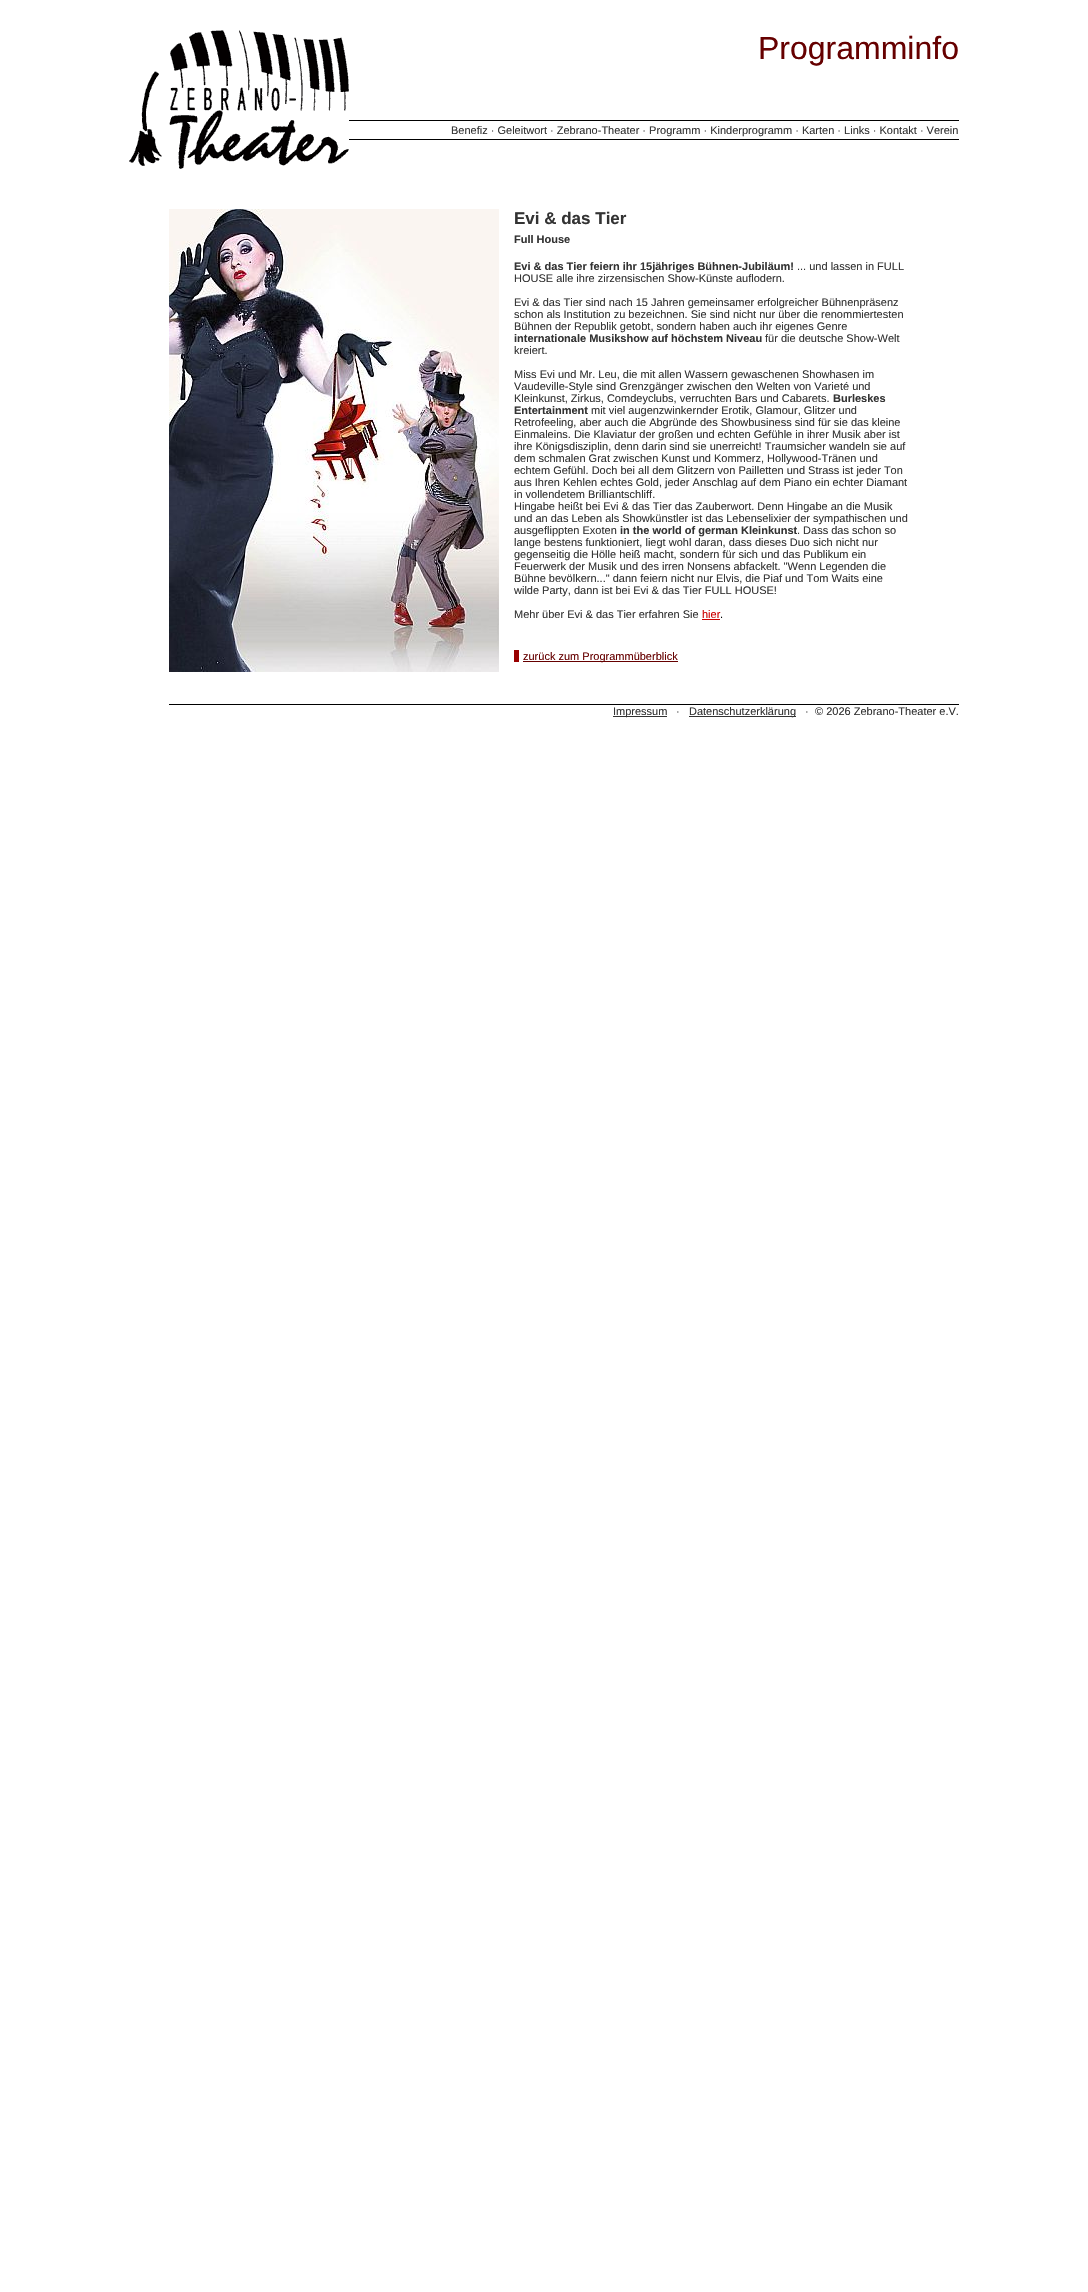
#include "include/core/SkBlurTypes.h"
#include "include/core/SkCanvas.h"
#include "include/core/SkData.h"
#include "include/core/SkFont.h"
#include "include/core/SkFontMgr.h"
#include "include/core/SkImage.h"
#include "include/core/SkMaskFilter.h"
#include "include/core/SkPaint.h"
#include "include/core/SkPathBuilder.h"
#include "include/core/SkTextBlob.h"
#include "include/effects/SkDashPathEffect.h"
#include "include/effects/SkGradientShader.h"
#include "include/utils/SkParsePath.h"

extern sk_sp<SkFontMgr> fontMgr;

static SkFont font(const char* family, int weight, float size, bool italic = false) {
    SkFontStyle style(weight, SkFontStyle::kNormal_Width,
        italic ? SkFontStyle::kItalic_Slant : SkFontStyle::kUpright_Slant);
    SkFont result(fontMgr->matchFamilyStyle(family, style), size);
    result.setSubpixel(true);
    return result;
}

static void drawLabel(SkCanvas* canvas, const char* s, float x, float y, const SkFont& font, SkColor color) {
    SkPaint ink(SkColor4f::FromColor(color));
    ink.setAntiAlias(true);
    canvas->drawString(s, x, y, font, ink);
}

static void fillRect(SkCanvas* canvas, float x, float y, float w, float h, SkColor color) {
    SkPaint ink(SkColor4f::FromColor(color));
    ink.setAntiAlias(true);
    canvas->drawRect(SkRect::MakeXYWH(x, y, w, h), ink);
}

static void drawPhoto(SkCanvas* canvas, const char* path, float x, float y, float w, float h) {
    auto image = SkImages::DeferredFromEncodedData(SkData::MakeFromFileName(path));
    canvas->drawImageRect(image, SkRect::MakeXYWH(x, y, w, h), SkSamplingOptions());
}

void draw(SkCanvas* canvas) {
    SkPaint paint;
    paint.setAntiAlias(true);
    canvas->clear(0xFFFFFFFF);
    drawPhoto(canvas, "assets/img1.png", 129, 30, 220, 139);
    SkFont font1 = font("Liberation Sans", 400, 32);
    drawLabel(canvas, "Programminfo", 758, 59, font1, 0xFF660000);
    fillRect(canvas, 349, 120, 610, 1, 0xFF000000);
    fillRect(canvas, 349, 139, 610, 1, 0xFF000000);
    SkFont font2 = font("Liberation Sans", 400, 11);
    drawLabel(canvas, "Benefiz · Geleitwort · Zebrano-Theater · Programm · Kinderprogramm · Karten · Links · Kontakt · Verein", 451, 134, font2, 0xFF333333);
    drawPhoto(canvas, "assets/img2.png", 169, 209, 330, 463);
    SkFont font3 = font("Liberation Sans", 700, 17);
    drawLabel(canvas, "Evi & das Tier", 514, 224, font3, 0xFF333333);
    SkFont font4 = font("Liberation Sans", 700, 11);
    drawLabel(canvas, "Full House", 514, 243, font4, 0xFF333333);
    drawLabel(canvas, "Evi & das Tier feiern ihr 15jähriges Bühnen-Jubiläum!", 514, 270, font4, 0xFF333333);
    drawLabel(canvas, "... und lassen in FULL", 797, 270, font2, 0xFF333333);
    drawLabel(canvas, "HOUSE alle ihre zirzensischen Show-Künste auflodern.", 514, 282, font2, 0xFF333333);
    drawLabel(canvas, "Evi & das Tier sind nach 15 Jahren gemeinsamer erfolgreicher Bühnenpräsenz", 514, 306, font2, 0xFF333333);
    drawLabel(canvas, "schon als Institution zu bezeichnen. Sie sind nicht nur über die renommiertesten", 514, 318, font2, 0xFF333333);
    drawLabel(canvas, "Bühnen der Republik getobt, sondern haben auch ihr eigenes Genre", 514, 330, font2, 0xFF333333);
    drawLabel(canvas, "internationale Musikshow auf höchstem Niveau", 514, 342, font4, 0xFF333333);
    drawLabel(canvas, "für die deutsche Show-Welt", 765, 342, font2, 0xFF333333);
    drawLabel(canvas, "kreiert.", 514, 354, font2, 0xFF333333);
    drawLabel(canvas, "Miss Evi und Mr. Leu, die mit allen Wassern gewaschenen Showhasen im", 514, 378, font2, 0xFF333333);
    drawLabel(canvas, "Vaudeville-Style sind Grenzgänger zwischen den Welten von Varieté und", 514, 390, font2, 0xFF333333);
    drawLabel(canvas, "Kleinkunst, Zirkus, Comdeyclubs, verruchten Bars und Cabarets.", 514, 402, font2, 0xFF333333);
    drawLabel(canvas, "Burleskes", 833, 402, font4, 0xFF333333);
    drawLabel(canvas, "Entertainment", 514, 414, font4, 0xFF333333);
    drawLabel(canvas, "mit viel augenzwinkernder Erotik, Glamour, Glitzer und", 591, 414, font2, 0xFF333333);
    drawLabel(canvas, "Retrofeeling, aber auch die Abgründe des Showbusiness sind für sie das kleine", 514, 426, font2, 0xFF333333);
    drawLabel(canvas, "Einmaleins. Die Klaviatur der großen und echten Gefühle in ihrer Musik aber ist", 514, 438, font2, 0xFF333333);
    drawLabel(canvas, "ihre Königsdisziplin, denn darin sind sie unerreicht! Traumsicher wandeln sie auf", 514, 450, font2, 0xFF333333);
    drawLabel(canvas, "dem schmalen Grat zwischen Kunst und Kommerz, Hollywood-Tränen und", 514, 462, font2, 0xFF333333);
    drawLabel(canvas, "echtem Gefühl. Doch bei all dem Glitzern von Pailletten und Strass ist jeder Ton", 514, 474, font2, 0xFF333333);
    drawLabel(canvas, "aus Ihren Kehlen echtes Gold, jeder Anschlag auf dem Piano ein echter Diamant", 514, 486, font2, 0xFF333333);
    drawLabel(canvas, "in vollendetem Brilliantschliff.", 514, 498, font2, 0xFF333333);
    drawLabel(canvas, "Hingabe heißt bei Evi & das Tier das Zauberwort. Denn Hingabe an die Musik", 514, 510, font2, 0xFF333333);
    drawLabel(canvas, "und an das Leben als Showkünstler ist das Lebenselixier der sympathischen und", 514, 522, font2, 0xFF333333);
    drawLabel(canvas, "ausgeflippten Exoten", 514, 534, font2, 0xFF333333);
    drawLabel(canvas, "in the world of german Kleinkunst", 620, 534, font4, 0xFF333333);
    drawLabel(canvas, ". Dass das schon so", 797, 534, font2, 0xFF333333);
    drawLabel(canvas, "lange bestens funktioniert, liegt wohl daran, dass dieses Duo sich nicht nur", 514, 546, font2, 0xFF333333);
    drawLabel(canvas, "gegenseitig die Hölle heiß macht, sondern für sich und das Publikum ein", 514, 558, font2, 0xFF333333);
    drawLabel(canvas, "Feuerwerk der Musik und des irren Nonsens abfackelt. \"Wenn Legenden die", 514, 570, font2, 0xFF333333);
    drawLabel(canvas, "Bühne bevölkern...\" dann feiern nicht nur Elvis, die Piaf und Tom Waits eine", 514, 582, font2, 0xFF333333);
    drawLabel(canvas, "wilde Party, dann ist bei Evi & das Tier FULL HOUSE!", 514, 594, font2, 0xFF333333);
    drawLabel(canvas, "Mehr über Evi & das Tier erfahren Sie", 514, 618, font2, 0xFF333333);
    drawLabel(canvas, "hier", 702, 618, font2, 0xFFCC0000);
    drawLabel(canvas, ".", 720, 618, font2, 0xFF000000);
    fillRect(canvas, 702, 619, 18, 1, 0xFFCC0000);
    fillRect(canvas, 514, 650, 5, 12, 0xFF990000);
    fillRect(canvas, 523, 661, 155, 1, 0xFF660000);
    drawLabel(canvas, "zurück zum Programmüberblick", 523, 660, font2, 0xFF660000);
    fillRect(canvas, 169, 704, 790, 1, 0xFF000000);
    fillRect(canvas, 613, 716, 54, 1, 0xFF333333);
    drawLabel(canvas, "Impressum", 613, 715, font2, 0xFF333333);
    drawLabel(canvas, "·", 676, 715, font2, 0xFF333333);
    fillRect(canvas, 689, 716, 107, 1, 0xFF333333);
    drawLabel(canvas, "Datenschutzerklärung", 689, 715, font2, 0xFF333333);
    drawLabel(canvas, "·", 805, 715, font2, 0xFF333333);
    drawLabel(canvas, "© 2026 Zebrano-Theater e.V.", 815, 715, font2, 0xFF333333);
}
